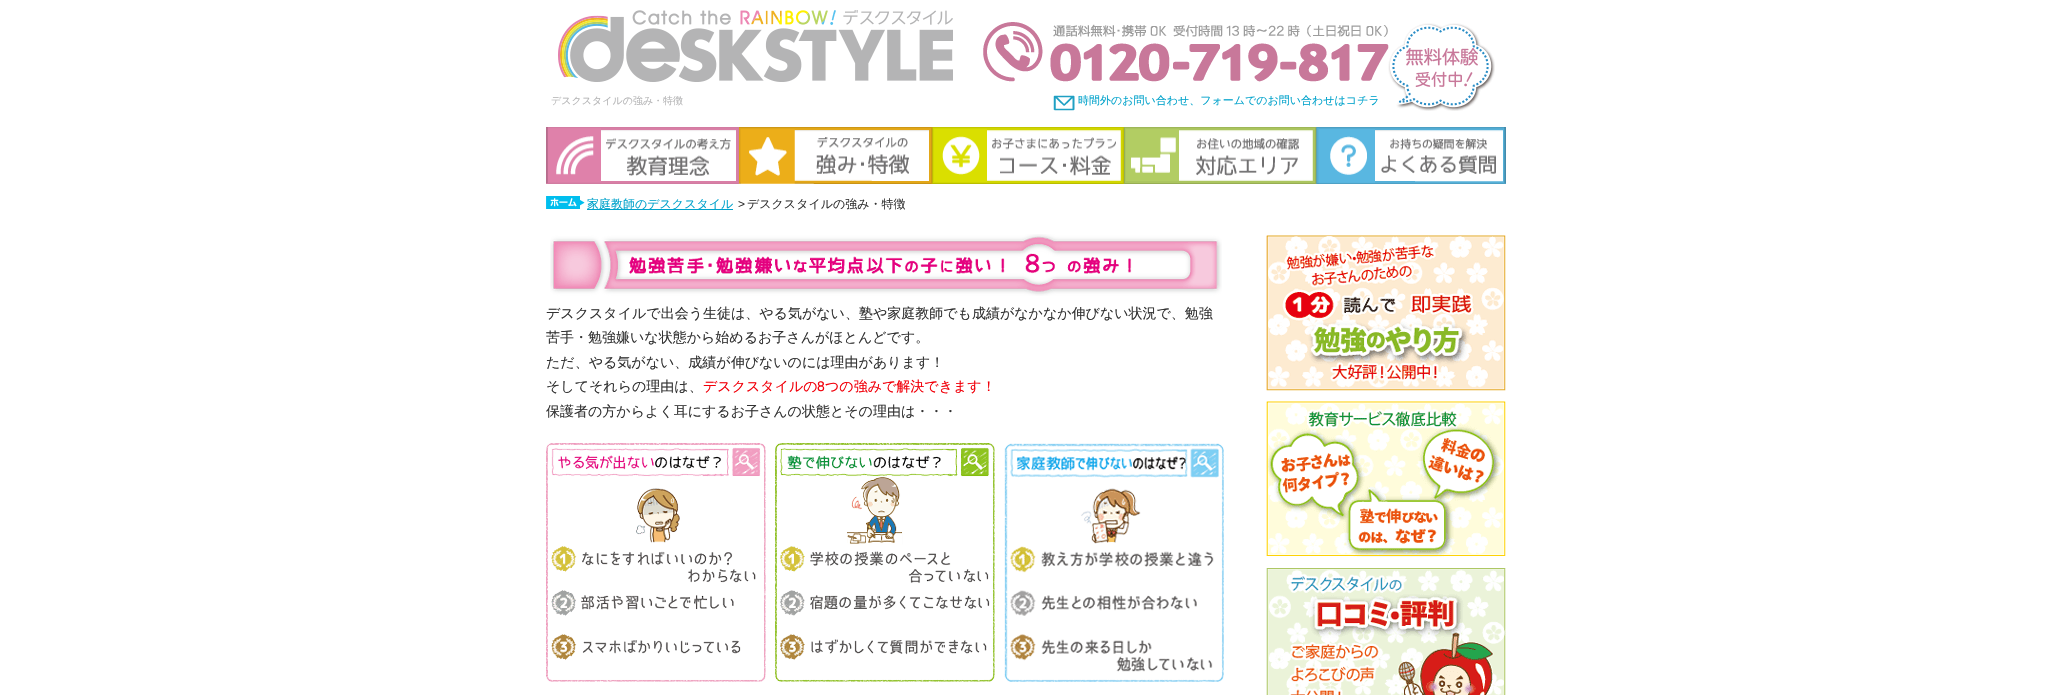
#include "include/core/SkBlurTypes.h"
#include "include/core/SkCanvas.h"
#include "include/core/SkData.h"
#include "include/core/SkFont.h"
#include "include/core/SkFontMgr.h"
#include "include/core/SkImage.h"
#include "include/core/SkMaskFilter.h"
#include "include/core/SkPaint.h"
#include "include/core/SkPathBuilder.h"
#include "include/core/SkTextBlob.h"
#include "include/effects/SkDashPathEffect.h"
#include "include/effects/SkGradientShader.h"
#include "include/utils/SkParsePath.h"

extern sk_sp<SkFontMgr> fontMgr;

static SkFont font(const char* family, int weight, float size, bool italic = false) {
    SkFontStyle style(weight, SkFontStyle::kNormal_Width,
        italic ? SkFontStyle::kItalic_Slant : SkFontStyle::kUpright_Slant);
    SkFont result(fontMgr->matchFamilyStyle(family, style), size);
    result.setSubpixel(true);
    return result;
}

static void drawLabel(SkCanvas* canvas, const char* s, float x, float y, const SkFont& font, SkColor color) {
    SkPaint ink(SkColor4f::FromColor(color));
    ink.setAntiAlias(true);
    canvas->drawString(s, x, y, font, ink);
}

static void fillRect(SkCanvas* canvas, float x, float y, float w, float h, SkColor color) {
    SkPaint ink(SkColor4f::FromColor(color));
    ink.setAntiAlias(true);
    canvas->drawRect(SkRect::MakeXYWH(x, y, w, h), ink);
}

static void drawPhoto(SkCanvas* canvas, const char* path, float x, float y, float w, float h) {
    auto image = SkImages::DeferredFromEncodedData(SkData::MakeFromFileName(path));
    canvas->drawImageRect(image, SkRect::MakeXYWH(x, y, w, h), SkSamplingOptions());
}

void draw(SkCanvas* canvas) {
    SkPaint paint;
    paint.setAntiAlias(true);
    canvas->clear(0xFFFFFFFF);
    drawPhoto(canvas, "assets/img1.png", 558, 10, 395, 72);
    SkFont font1 = font("WenQuanYi Zen Hei", 500, 10);
    drawLabel(canvas, "デスクスタイルの強み・特徴", 551, 104, font1, 0xFFB4B4B5);
    drawPhoto(canvas, "assets/img2.png", 983, 22, 406, 60);
    drawPhoto(canvas, "assets/img3.png", 1388, 23, 107, 88);
    drawPhoto(canvas, "assets/img4.png", 1053, 95, 22, 16);
    SkFont font2 = font("WenQuanYi Zen Hei", 500, 11);
    drawLabel(canvas, "時間外のお問い合わせ、フォームでのお問い合わせはコチラ", 1078, 104, font2, 0xFF00A2CB);
    drawPhoto(canvas, "assets/img5.png", 546, 127, 192, 57);
    drawPhoto(canvas, "assets/img6.png", 738, 127, 192, 57);
    drawPhoto(canvas, "assets/img7.png", 930, 127, 192, 57);
    drawPhoto(canvas, "assets/img8.png", 1122, 127, 192, 57);
    drawPhoto(canvas, "assets/img9.png", 1314, 127, 192, 57);
    drawPhoto(canvas, "assets/img10.png", 546, 196, 39, 13);
    fillRect(canvas, 587, 209, 146, 1, 0xFF00A2CB);
    SkFont font3 = font("WenQuanYi Zen Hei", 500, 12);
    drawLabel(canvas, "家庭教師のデスクスタイル", 587, 208, font3, 0xFF00A2CB);
    SkFont font4 = font("Liberation Sans", 400, 12);
    drawLabel(canvas, ">", 738, 208, font4, 0xFF333333);
    drawLabel(canvas, "デスクスタイルの強み・特徴", 747, 208, font3, 0xFF333333);
    drawPhoto(canvas, "assets/img11.png", 550, 234, 672, 62);
    SkFont font5 = font("WenQuanYi Zen Hei", 500, 14);
    drawLabel(canvas, "デスクスタイルで出会う生徒は、やる気がない、塾や家庭教師でも成績がなかなか伸びない状況で、勉強", 546, 318, font5, 0xFF333333);
    drawLabel(canvas, "苦手・勉強嫌いな状態から始めるお子さんがほとんどです。", 546, 342, font5, 0xFF333333);
    drawLabel(canvas, "ただ、やる気がない、成績が伸びないのには理由があります！", 546, 367, font5, 0xFF333333);
    drawLabel(canvas, "そしてそれらの理由は、", 546, 391, font5, 0xFF333333);
    drawLabel(canvas, "デスクスタイルの", 703, 391, font5, 0xFFF2000A);
    SkFont font6 = font("Liberation Sans", 400, 14);
    drawLabel(canvas, "8", 817, 391, font6, 0xFFF2000A);
    drawLabel(canvas, "つの強みで解決できます！", 825, 391, font5, 0xFFF2000A);
    drawLabel(canvas, "保護者の方からよく耳にするお子さんの状態とその理由は・・・", 546, 416, font5, 0xFF333333);
    drawPhoto(canvas, "assets/img12.png", 546, 443, 220, 239);
    drawPhoto(canvas, "assets/img13.png", 775, 443, 220, 239);
    drawPhoto(canvas, "assets/img14.png", 1004, 443, 220, 239);
    drawPhoto(canvas, "assets/img15.png", 1266, 235, 240, 156);
    drawPhoto(canvas, "assets/img16.png", 1266, 401, 240, 156);
    drawPhoto(canvas, "assets/img17.png", 1266, 568, 240, 127);
}
